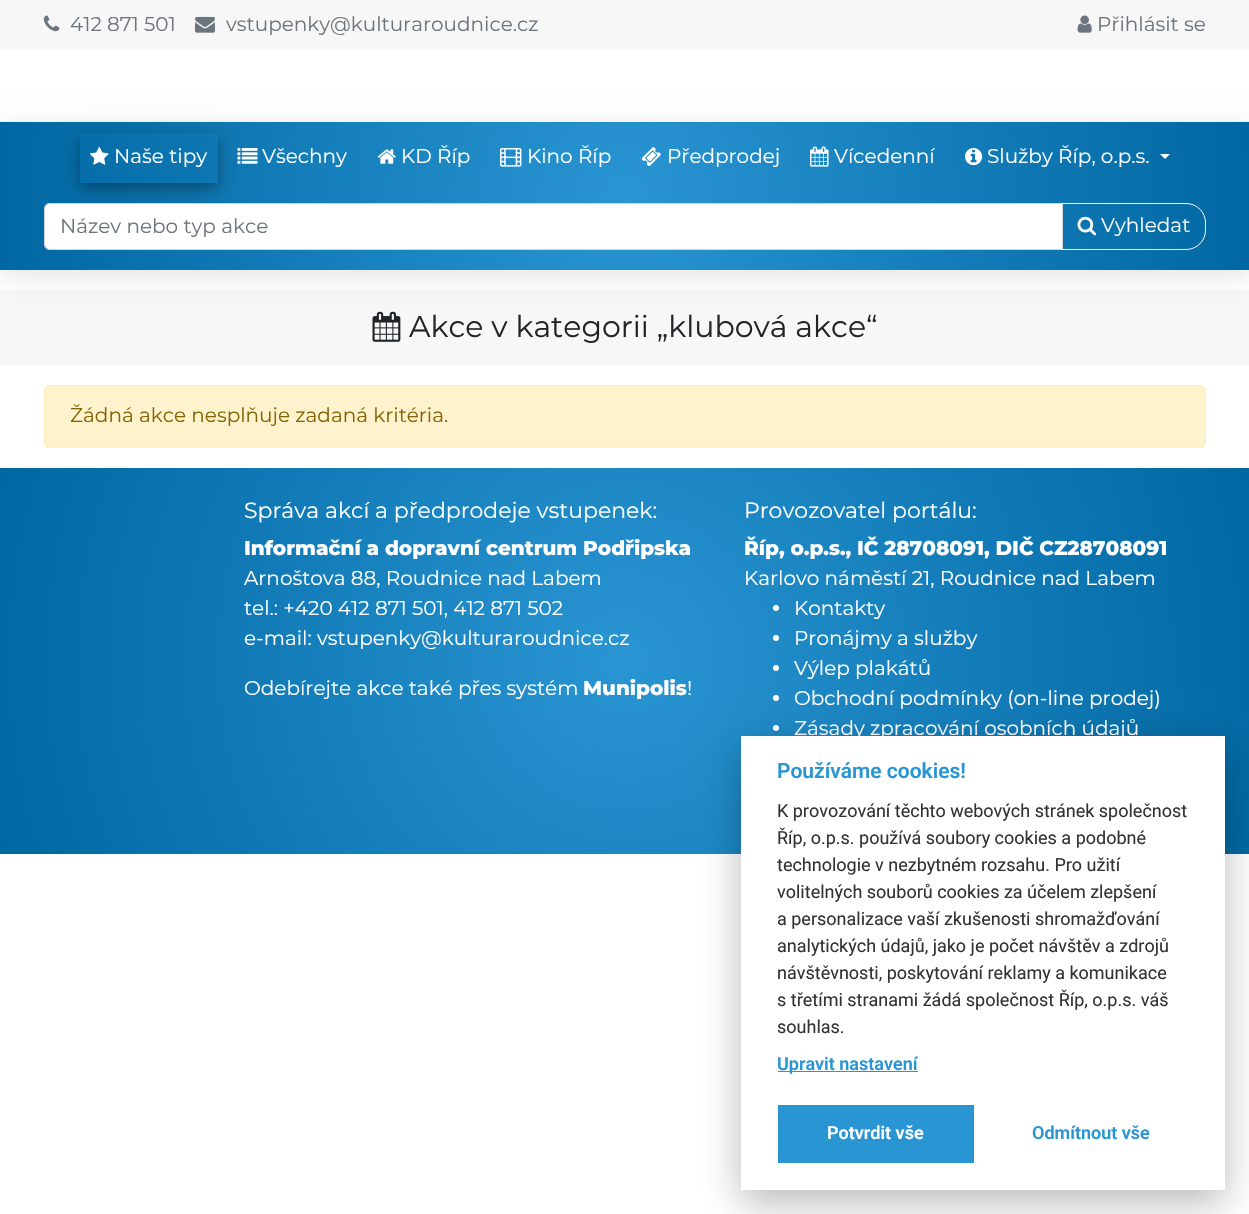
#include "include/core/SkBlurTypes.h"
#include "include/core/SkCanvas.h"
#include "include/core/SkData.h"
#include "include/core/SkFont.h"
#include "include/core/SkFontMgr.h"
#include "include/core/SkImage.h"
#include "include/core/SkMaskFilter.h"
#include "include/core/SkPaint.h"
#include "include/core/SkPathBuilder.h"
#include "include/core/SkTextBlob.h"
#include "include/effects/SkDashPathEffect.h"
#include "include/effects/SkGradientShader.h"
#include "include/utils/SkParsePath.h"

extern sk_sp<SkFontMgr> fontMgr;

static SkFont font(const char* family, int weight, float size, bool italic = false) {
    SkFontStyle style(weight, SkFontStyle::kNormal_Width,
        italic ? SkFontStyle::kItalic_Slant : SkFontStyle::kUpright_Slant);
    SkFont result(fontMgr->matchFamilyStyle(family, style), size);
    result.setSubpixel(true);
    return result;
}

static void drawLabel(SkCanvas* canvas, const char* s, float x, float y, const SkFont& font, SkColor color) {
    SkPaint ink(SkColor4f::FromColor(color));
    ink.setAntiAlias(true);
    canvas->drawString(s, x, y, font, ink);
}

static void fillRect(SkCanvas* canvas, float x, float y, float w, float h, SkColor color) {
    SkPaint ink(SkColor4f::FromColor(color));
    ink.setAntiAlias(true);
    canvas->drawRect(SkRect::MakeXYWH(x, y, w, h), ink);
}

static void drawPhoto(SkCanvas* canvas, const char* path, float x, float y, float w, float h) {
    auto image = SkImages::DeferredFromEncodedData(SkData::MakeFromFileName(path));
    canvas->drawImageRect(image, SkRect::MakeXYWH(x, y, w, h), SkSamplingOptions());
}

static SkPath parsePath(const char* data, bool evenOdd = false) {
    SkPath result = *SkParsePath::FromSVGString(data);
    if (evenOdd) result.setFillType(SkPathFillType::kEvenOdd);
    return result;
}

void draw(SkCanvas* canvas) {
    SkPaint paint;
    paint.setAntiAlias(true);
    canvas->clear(0xFFFFFFFF);
    fillRect(canvas, 0, 0, 1249, 50, 0xFFF7F7F7);
    drawPhoto(canvas, "assets/img1.png", 43, 15, 17, 17);
    SkFont font1 = font("Montserrat", 400, 20);
    drawLabel(canvas, "412 871 501", 70, 31, font1, 0xFF6C757D);
    drawPhoto(canvas, "assets/img2.png", 195, 16, 20, 17);
    drawLabel(canvas, "vstupenky@kulturaroudnice.cz", 226, 31, font1, 0xFF6C757D);
    drawPhoto(canvas, "assets/img3.png", 1077, 15, 15, 18);
    drawLabel(canvas, "Přihlásit se", 1097, 31, font1, 0xFF6C757D);
    paint.setColor(0x1A000000);
    paint.setMaskFilter(SkMaskFilter::MakeBlur(kNormal_SkBlurStyle, 12.5f));
    canvas->drawRect(SkRect::MakeXYWH(0, 128, 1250, 148), paint);
    paint.setMaskFilter(nullptr);
    {
        const SkColor colors[] = {0xFF2995D2, 0xFF0067A2};
        const float stops[] = {0, 1};
        paint.setShader(SkGradientShader::MakeRadial({625, 49}, 629, colors, stops, 2, SkTileMode::kClamp));
        paint.setAlpha(255);
    }
    canvas->drawRect(SkRect::MakeXYWH(0, 122, 1249, 1), paint);
    {
        const SkColor colors[] = {0xFF2995D2, 0xFF0067A2};
        const float stops[] = {0, 1};
        paint.setShader(SkGradientShader::MakeRadial({625, 196}, 629, colors, stops, 2, SkTileMode::kClamp));
        paint.setAlpha(255);
    }
    canvas->drawRect(SkRect::MakeXYWH(0, 123, 1249, 147), paint);
    fillRect(canvas, 0, 121, 1249, 1, 0xFFF2F2F2);
    canvas->save();
    canvas->clipPath(parsePath("M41 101H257V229H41ZM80 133H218V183H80Z", true), true);
    paint.setShader(nullptr);
    paint.setColor(0x30000000);
    paint.setMaskFilter(SkMaskFilter::MakeBlur(kNormal_SkBlurStyle, 12.5f));
    canvas->drawRect(SkRect::MakeXYWH(80, 140, 138, 50), paint);
    paint.setMaskFilter(nullptr);
    canvas->restore();
    canvas->save();
    canvas->clipPath(parsePath("M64 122H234V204H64ZM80 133H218V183H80Z", true), true);
    paint.setColor(0x33000000);
    paint.setMaskFilter(SkMaskFilter::MakeBlur(kNormal_SkBlurStyle, 5));
    canvas->drawRect(SkRect::MakeXYWH(80, 138, 138, 50), paint);
    paint.setMaskFilter(nullptr);
    canvas->restore();
    drawPhoto(canvas, "assets/img4.png", 90, 147, 19, 18);
    drawLabel(canvas, "Naše tipy", 114, 163, font1, 0xFFFFFFFF);
    drawPhoto(canvas, "assets/img5.png", 237, 148, 21, 16);
    drawLabel(canvas, "Všechny", 262, 163, font1, 0xFFFFFFFF);
    drawPhoto(canvas, "assets/img6.png", 377, 149, 19, 15);
    drawLabel(canvas, "KD Říp", 401, 163, font1, 0xFFFFFFFF);
    drawPhoto(canvas, "assets/img7.png", 500, 148, 22, 19);
    drawLabel(canvas, "Kino Říp", 527, 163, font1, 0xFFFFFFFF);
    drawPhoto(canvas, "assets/img8.png", 641, 147, 20, 19);
    drawLabel(canvas, "Předprodej", 667, 163, font1, 0xFFFFFFFF);
    drawPhoto(canvas, "assets/img9.png", 810, 146, 19, 21);
    drawLabel(canvas, "Vícedenní", 834, 163, font1, 0xFFFFFFFF);
    drawPhoto(canvas, "assets/img10.png", 965, 148, 18, 18);
    drawLabel(canvas, "Služby Říp, o.p.s.", 987, 163, font1, 0xFFFFFFFF);
    paint.setColor(0xFFFFFFFF);
    canvas->drawPath(parsePath("M1160 154H1170L1165 159Z"), paint);
    canvas->drawPath(parsePath("M49 204H1061V249H49C47 249 45 247 45 245V208C45 206 47 204 49 204Z"), paint);
    paint.setStroke(true);
    paint.setStrokeWidth(1);
    paint.setColor(0xFFCED4DA);
    canvas->drawPath(parsePath("M49 203.5H1062.5V249.5H49C46.5 249.5 44.5 247.5 44.5 245V208C44.5 205.5 46.5 203.5 49 203.5Z"), paint);
    drawLabel(canvas, "Název nebo typ akce", 60, 233, font1, 0xFF6C757D);
    paint.setColor(0xFFF8F9FA);
    canvas->drawPath(parsePath("M1061.5 203.5H1186C1197 203.5 1205.5 212 1205.5 223V230C1205.5 241 1197 249.5 1186 249.5H1061.5Z"), paint);
    drawPhoto(canvas, "assets/img11.png", 1077, 216, 19, 20);
    drawLabel(canvas, "Vyhledat", 1101, 232, font1, 0xFFF8F9FA);
    fillRect(canvas, 0, 290, 1249, 75, 0x08000000);
    drawPhoto(canvas, "assets/img12.png", 372, 311, 29, 31);
    SkFont font2 = font("Montserrat", 400, 30);
    drawLabel(canvas, "Akce v kategorii „klubová akce“", 409, 337, font2, 0xFF212529);
    paint.setStroke(false);
    paint.setColor(0xFFFFF3CD);
    canvas->drawRoundRect(SkRect::MakeXYWH(44.5f, 385.5f, 1161, 62), 4.5f, 4.5f, paint);
    paint.setStroke(true);
    paint.setColor(0xFFFFEEBA);
    canvas->drawRoundRect(SkRect::MakeXYWH(44.5f, 385.5f, 1161, 62), 4.5f, 4.5f, paint);
    drawLabel(canvas, "Žádná akce nesplňuje zadaná kritéria.", 70, 422, font1, 0xFF856404);
    paint.setStroke(false);
    {
        const SkColor colors[] = {0xFF2995D2, 0xFF0067A2};
        const float stops[] = {0, 1};
        paint.setShader(SkGradientShader::MakeRadial({625, 661}, 654, colors, stops, 2, SkTileMode::kClamp));
        paint.setAlpha(255);
    }
    canvas->drawRect(SkRect::MakeXYWH(0, 468, 1249, 386), paint);
    SkFont font3 = font("Montserrat", 400, 22);
    drawLabel(canvas, "Správa akcí a předprodeje vstupenek:", 244, 518, font3, 0xFFFFFFFF);
    SkFont font4 = font("Montserrat", 800, 20);
    drawLabel(canvas, "Informační a dopravní centrum Podřipska", 244, 555, font4, 0xFFFFFFFF);
    drawLabel(canvas, "Arnoštova 88, Roudnice nad Labem", 244, 585, font1, 0xFFFFFFFF);
    drawLabel(canvas, "tel.: +420 412 871 501, 412 871 502", 244, 615, font1, 0xFFFFFFFF);
    drawLabel(canvas, "e-mail: vstupenky@kulturaroudnice.cz", 244, 645, font1, 0xFFFFFFFF);
    drawLabel(canvas, "Odebírejte akce také přes systém", 244, 695, font1, 0xFFFFFFFF);
    drawLabel(canvas, "Munipolis", 583, 695, font4, 0xFFFFFFFF);
    drawLabel(canvas, "!", 687, 695, font1, 0xFFFFFFFF);
    drawLabel(canvas, "Provozovatel portálu:", 744, 518, font3, 0xFFFFFFFF);
    drawLabel(canvas, "Říp, o.p.s., IČ 28708091, DIČ CZ28708091", 744, 555, font4, 0xFFFFFFFF);
    drawLabel(canvas, "Karlovo náměstí 21, Roudnice nad Labem", 744, 585, font1, 0xFFFFFFFF);
    paint.setShader(nullptr);
    paint.setColor(0xFFFFFFFF);
    canvas->drawCircle(776, 608, 3, paint);
    drawLabel(canvas, "Kontakty", 794, 615, font1, 0xFFFFFFFF);
    canvas->drawCircle(776, 638, 3, paint);
    drawLabel(canvas, "Pronájmy a služby", 794, 645, font1, 0xFFFFFFFF);
    canvas->drawCircle(776, 668, 3, paint);
    drawLabel(canvas, "Výlep plakátů", 794, 675, font1, 0xFFFFFFFF);
    canvas->drawCircle(776, 698, 3, paint);
    drawLabel(canvas, "Obchodní podmínky (on-line prodej)", 794, 705, font1, 0xFFFFFFFF);
    canvas->drawCircle(776, 728, 3, paint);
    drawLabel(canvas, "Zásady zpracování osobních údajů", 794, 735, font1, 0xFFFFFFFF);
    paint.setColor(0x47020203);
    paint.setMaskFilter(SkMaskFilter::MakeBlur(kNormal_SkBlurStyle, 19));
    canvas->drawRect(SkRect::MakeXYWH(741, 749, 484, 454), paint);
    paint.setMaskFilter(nullptr);
    fillRect(canvas, 741, 736, 484, 454, 0xFFFFFFFF);
    SkFont font5 = font("Roboto", 600, 21);
    drawLabel(canvas, "Používáme cookies!", 777, 778, font5, 0xFF2995D2);
    SkFont font6 = font("Roboto", 400, 18);
    drawLabel(canvas, "K provozování těchto webových stránek společnost", 777, 817, font6, 0xFF333333);
    drawLabel(canvas, "Říp, o.p.s. používá soubory cookies a podobné", 777, 844, font6, 0xFF333333);
    drawLabel(canvas, "technologie v nezbytném rozsahu. Pro užití", 777, 871, font6, 0xFF333333);
    drawLabel(canvas, "volitelných souborů cookies za účelem zlepšení", 777, 898, font6, 0xFF333333);
    drawLabel(canvas, "a personalizace vaší zkušenosti shromažďování", 777, 925, font6, 0xFF333333);
    drawLabel(canvas, "analytických údajů, jako je počet návštěv a zdrojů", 777, 952, font6, 0xFF333333);
    drawLabel(canvas, "návštěvnosti, poskytování reklamy a komunikace", 777, 979, font6, 0xFF333333);
    drawLabel(canvas, "s třetími stranami žádá společnost Říp, o.p.s. váš", 777, 1006, font6, 0xFF333333);
    drawLabel(canvas, "souhlas.", 777, 1033, font6, 0xFF333333);
    fillRect(canvas, 778, 1071, 140, 1, 0xFF2995D2);
    SkFont font7 = font("Roboto", 600, 18);
    drawLabel(canvas, "Upravit nastavení", 777, 1070, font7, 0xFF2995D2);
    fillRect(canvas, 778, 1105, 196, 58, 0xFF2995D2);
    drawLabel(canvas, "Potvrdit vše", 827, 1139, font7, 0xFFFFFFFF);
    drawLabel(canvas, "Odmítnout vše", 1032, 1139, font7, 0xFF2995D2);
}
